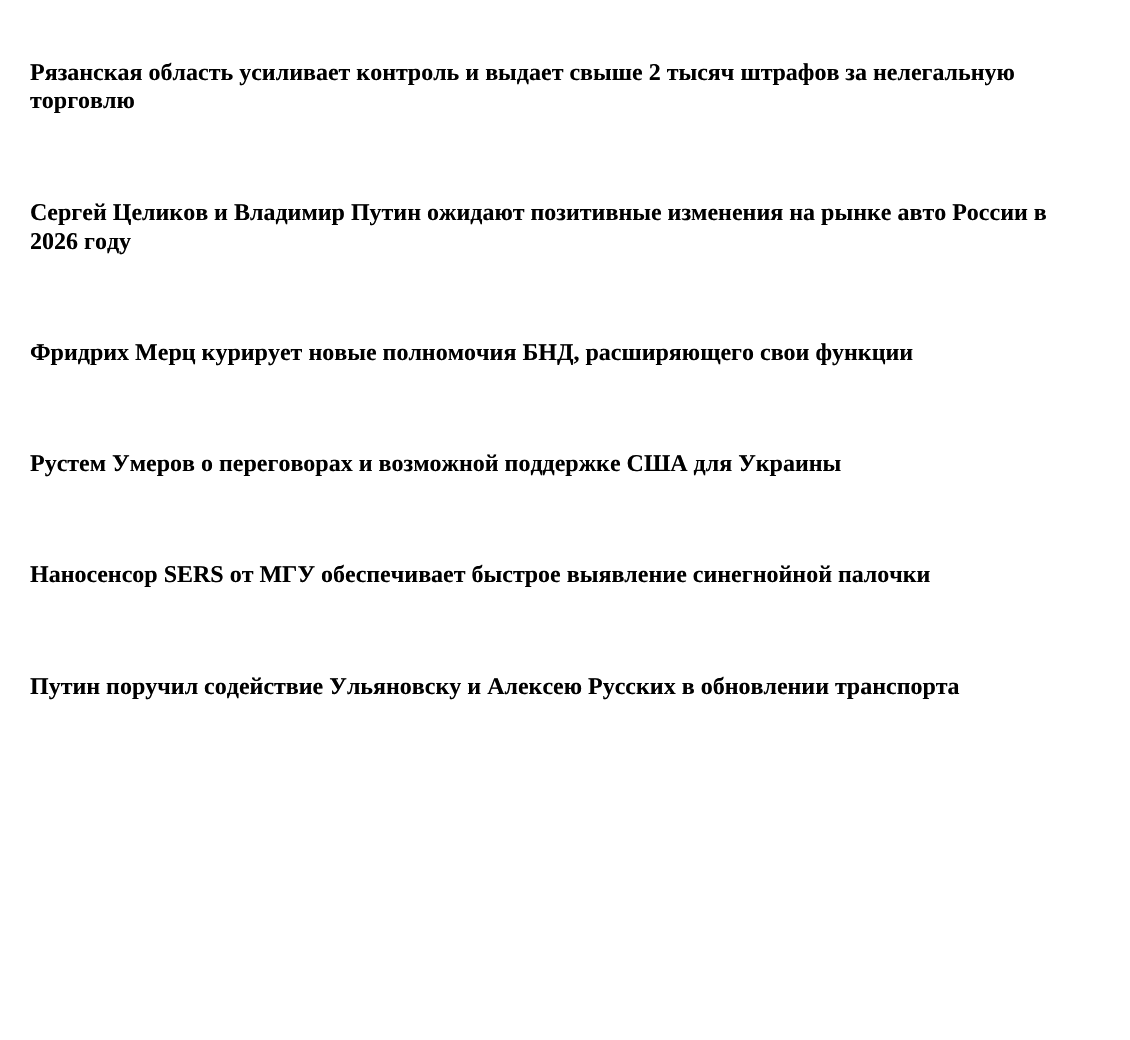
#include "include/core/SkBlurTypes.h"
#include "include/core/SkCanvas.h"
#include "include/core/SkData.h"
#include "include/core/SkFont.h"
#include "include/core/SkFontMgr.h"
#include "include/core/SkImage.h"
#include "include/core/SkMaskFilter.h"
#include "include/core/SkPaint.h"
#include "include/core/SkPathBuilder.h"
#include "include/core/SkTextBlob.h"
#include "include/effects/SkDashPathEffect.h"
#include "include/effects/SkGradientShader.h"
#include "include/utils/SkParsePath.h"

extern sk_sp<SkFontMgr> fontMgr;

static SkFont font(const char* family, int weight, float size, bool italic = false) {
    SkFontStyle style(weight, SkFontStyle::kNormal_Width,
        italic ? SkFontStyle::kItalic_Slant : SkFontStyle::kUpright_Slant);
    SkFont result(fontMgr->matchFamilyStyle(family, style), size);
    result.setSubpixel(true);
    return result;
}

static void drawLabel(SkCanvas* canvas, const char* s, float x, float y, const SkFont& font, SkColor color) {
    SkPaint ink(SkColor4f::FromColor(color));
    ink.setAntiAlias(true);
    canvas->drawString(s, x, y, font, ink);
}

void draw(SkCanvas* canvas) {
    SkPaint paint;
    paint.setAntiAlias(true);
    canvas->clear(0xFFFFFFFF);
    SkFont font1 = font("Liberation Serif", 700, 24);
    drawLabel(canvas, "Рязанская область усиливает контроль и выдает свыше 2 тысяч штрафов за нелегальную", 30, 80, font1, 0xFF000000);
    drawLabel(canvas, "торговлю", 30, 108, font1, 0xFF000000);
    drawLabel(canvas, "Сергей Целиков и Владимир Путин ожидают позитивные изменения на рынке авто России в", 30, 220, font1, 0xFF000000);
    drawLabel(canvas, "2026 году", 30, 249, font1, 0xFF000000);
    drawLabel(canvas, "Фридрих Мерц курирует новые полномочия БНД, расширяющего свои функции", 30, 360, font1, 0xFF000000);
    drawLabel(canvas, "Рустем Умеров о переговорах и возможной поддержке США для Украины", 30, 471, font1, 0xFF000000);
    drawLabel(canvas, "Наносенсор SERS от МГУ обеспечивает быстрое выявление синегнойной палочки", 30, 582, font1, 0xFF000000);
    drawLabel(canvas, "Путин поручил содействие Ульяновску и Алексею Русских в обновлении транспорта", 30, 694, font1, 0xFF000000);
}
